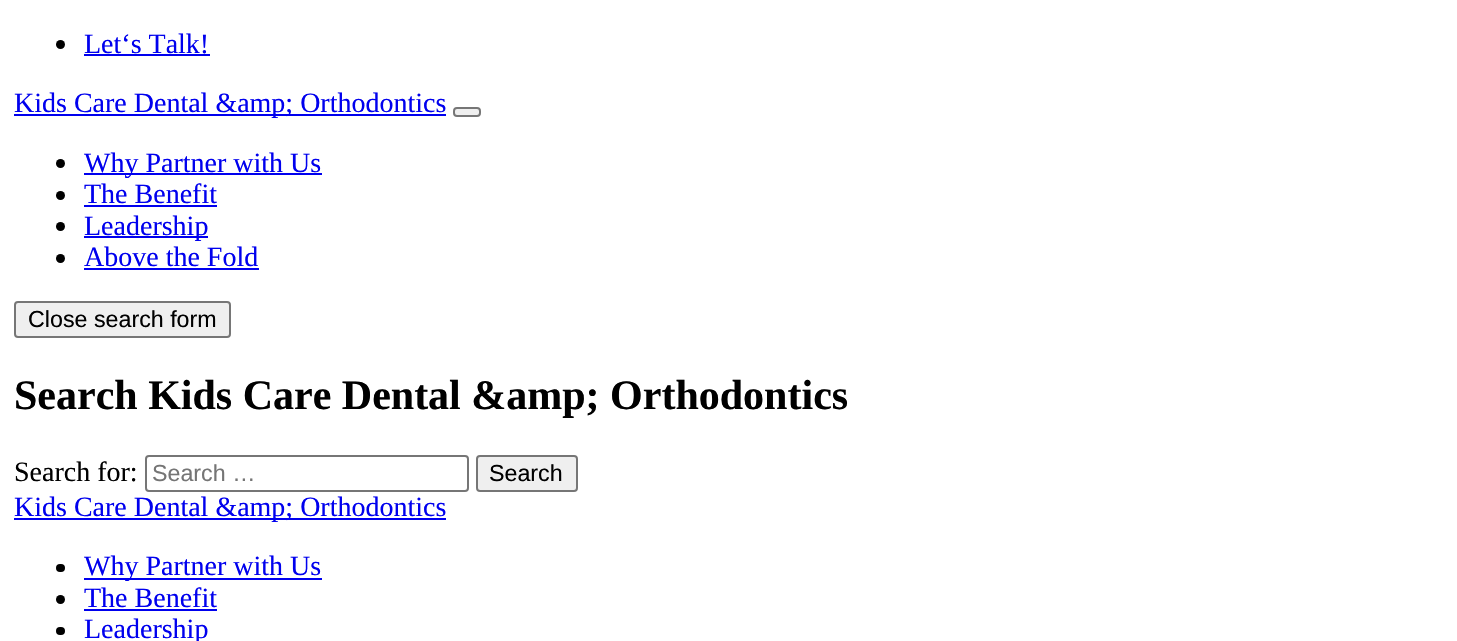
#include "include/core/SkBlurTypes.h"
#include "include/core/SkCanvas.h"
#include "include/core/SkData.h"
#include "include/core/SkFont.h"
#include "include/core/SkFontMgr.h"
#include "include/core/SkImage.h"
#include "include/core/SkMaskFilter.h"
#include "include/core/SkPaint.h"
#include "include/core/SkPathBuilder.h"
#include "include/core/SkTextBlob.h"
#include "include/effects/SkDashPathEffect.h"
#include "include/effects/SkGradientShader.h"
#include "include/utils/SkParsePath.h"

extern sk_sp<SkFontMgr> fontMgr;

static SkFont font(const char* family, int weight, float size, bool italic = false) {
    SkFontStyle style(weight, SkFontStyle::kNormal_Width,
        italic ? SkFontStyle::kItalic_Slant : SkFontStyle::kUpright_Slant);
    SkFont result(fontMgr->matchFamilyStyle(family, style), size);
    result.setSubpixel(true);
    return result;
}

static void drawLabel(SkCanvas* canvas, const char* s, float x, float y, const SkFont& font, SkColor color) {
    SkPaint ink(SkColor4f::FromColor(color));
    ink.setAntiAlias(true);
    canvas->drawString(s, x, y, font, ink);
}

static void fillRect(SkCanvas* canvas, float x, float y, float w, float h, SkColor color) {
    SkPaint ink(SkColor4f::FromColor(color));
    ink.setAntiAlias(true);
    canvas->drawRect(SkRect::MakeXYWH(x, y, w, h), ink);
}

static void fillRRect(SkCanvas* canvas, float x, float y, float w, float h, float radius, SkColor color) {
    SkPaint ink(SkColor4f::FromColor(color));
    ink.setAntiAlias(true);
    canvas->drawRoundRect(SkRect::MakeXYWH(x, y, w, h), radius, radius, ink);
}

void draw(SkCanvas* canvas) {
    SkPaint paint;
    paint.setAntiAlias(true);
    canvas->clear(0xFFFFFFFF);
    paint.setColor(0xFF000000);
    canvas->drawCircle(60.5f, 44.5f, 4.5f, paint);
    SkFont font1 = font("Liberation Serif", 400, 28);
    drawLabel(canvas, "Let‘s Talk!", 84, 53, font1, 0xFF0000EE);
    fillRect(canvas, 84, 54, 126, 2, 0xFF0000EE);
    fillRect(canvas, 14, 114, 432, 2, 0xFF0000EE);
    drawLabel(canvas, "Kids Care Dental &amp; Orthodontics", 14, 112, font1, 0xFF0000EE);
    paint.setColor(0xFFEFEFEF);
    canvas->drawRoundRect(SkRect::MakeXYWH(454, 108, 26, 8), 3, 3, paint);
    paint.setStroke(true);
    paint.setStrokeWidth(2);
    paint.setColor(0xFF767676);
    canvas->drawRoundRect(SkRect::MakeXYWH(454, 108, 26, 8), 3, 3, paint);
    paint.setStroke(false);
    paint.setColor(0xFF000000);
    canvas->drawCircle(60.5f, 163.5f, 4.5f, paint);
    fillRect(canvas, 84, 173, 238, 2, 0xFF0000EE);
    drawLabel(canvas, "Why Partner with Us", 84, 172, font1, 0xFF0000EE);
    canvas->drawCircle(60.5f, 195.5f, 4.5f, paint);
    drawLabel(canvas, "The Benefit", 84, 203, font1, 0xFF0000EE);
    fillRect(canvas, 84, 205, 133, 2, 0xFF0000EE);
    canvas->drawCircle(60.5f, 226.5f, 4.5f, paint);
    fillRect(canvas, 84, 236, 124, 2, 0xFF0000EE);
    drawLabel(canvas, "Leadership", 84, 235, font1, 0xFF0000EE);
    canvas->drawCircle(60.5f, 258.5f, 4.5f, paint);
    drawLabel(canvas, "Above the Fold", 84, 266, font1, 0xFF0000EE);
    fillRect(canvas, 84, 268, 175, 2, 0xFF0000EE);
    paint.setColor(0xFFEFEFEF);
    canvas->drawRoundRect(SkRect::MakeXYWH(15, 302, 215, 35), 3, 3, paint);
    paint.setStroke(true);
    paint.setColor(0xFF767676);
    canvas->drawRoundRect(SkRect::MakeXYWH(15, 302, 215, 35), 3, 3, paint);
    SkFont font2 = font("Liberation Sans", 400, 23.25f);
    drawLabel(canvas, "Close search form", 28, 327, font2, 0xFF000000);
    SkFont font3 = font("Liberation Serif", 700, 42);
    drawLabel(canvas, "Search Kids Care Dental &amp; Orthodontics", 14, 409, font3, 0xFF000000);
    drawLabel(canvas, "Search for:", 14, 481, font1, 0xFF000000);
    canvas->drawRoundRect(SkRect::MakeXYWH(146, 456, 322, 35), 3, 3, paint);
    drawLabel(canvas, "Search …", 152, 481, font2, 0xFF757575);
    paint.setStroke(false);
    paint.setColor(0xFFEFEFEF);
    canvas->drawRoundRect(SkRect::MakeXYWH(477, 456, 100, 35), 3, 3, paint);
    paint.setStroke(true);
    paint.setColor(0xFF767676);
    canvas->drawRoundRect(SkRect::MakeXYWH(477, 456, 100, 35), 3, 3, paint);
    drawLabel(canvas, "Search", 489, 481, font2, 0xFF000000);
    fillRect(canvas, 14, 518, 432, 2, 0xFF0000EE);
    drawLabel(canvas, "Kids Care Dental &amp; Orthodontics", 14, 516, font1, 0xFF0000EE);
    fillRRect(canvas, 56, 564, 9, 8, 4, 0xFF000000);
    fillRect(canvas, 84, 578, 238, 2, 0xFF0000EE);
    drawLabel(canvas, "Why Partner with Us", 84, 575, font1, 0xFF0000EE);
    paint.setStroke(false);
    paint.setColor(0xFF000000);
    canvas->drawCircle(60.5f, 599.5f, 4.5f, paint);
    drawLabel(canvas, "The Benefit", 84, 607, font1, 0xFF0000EE);
    fillRect(canvas, 84, 609, 133, 2, 0xFF0000EE);
    fillRRect(canvas, 56, 627, 9, 8, 4, 0xFF000000);
    drawLabel(canvas, "Leadership", 84, 638, font1, 0xFF0000EE);
}
